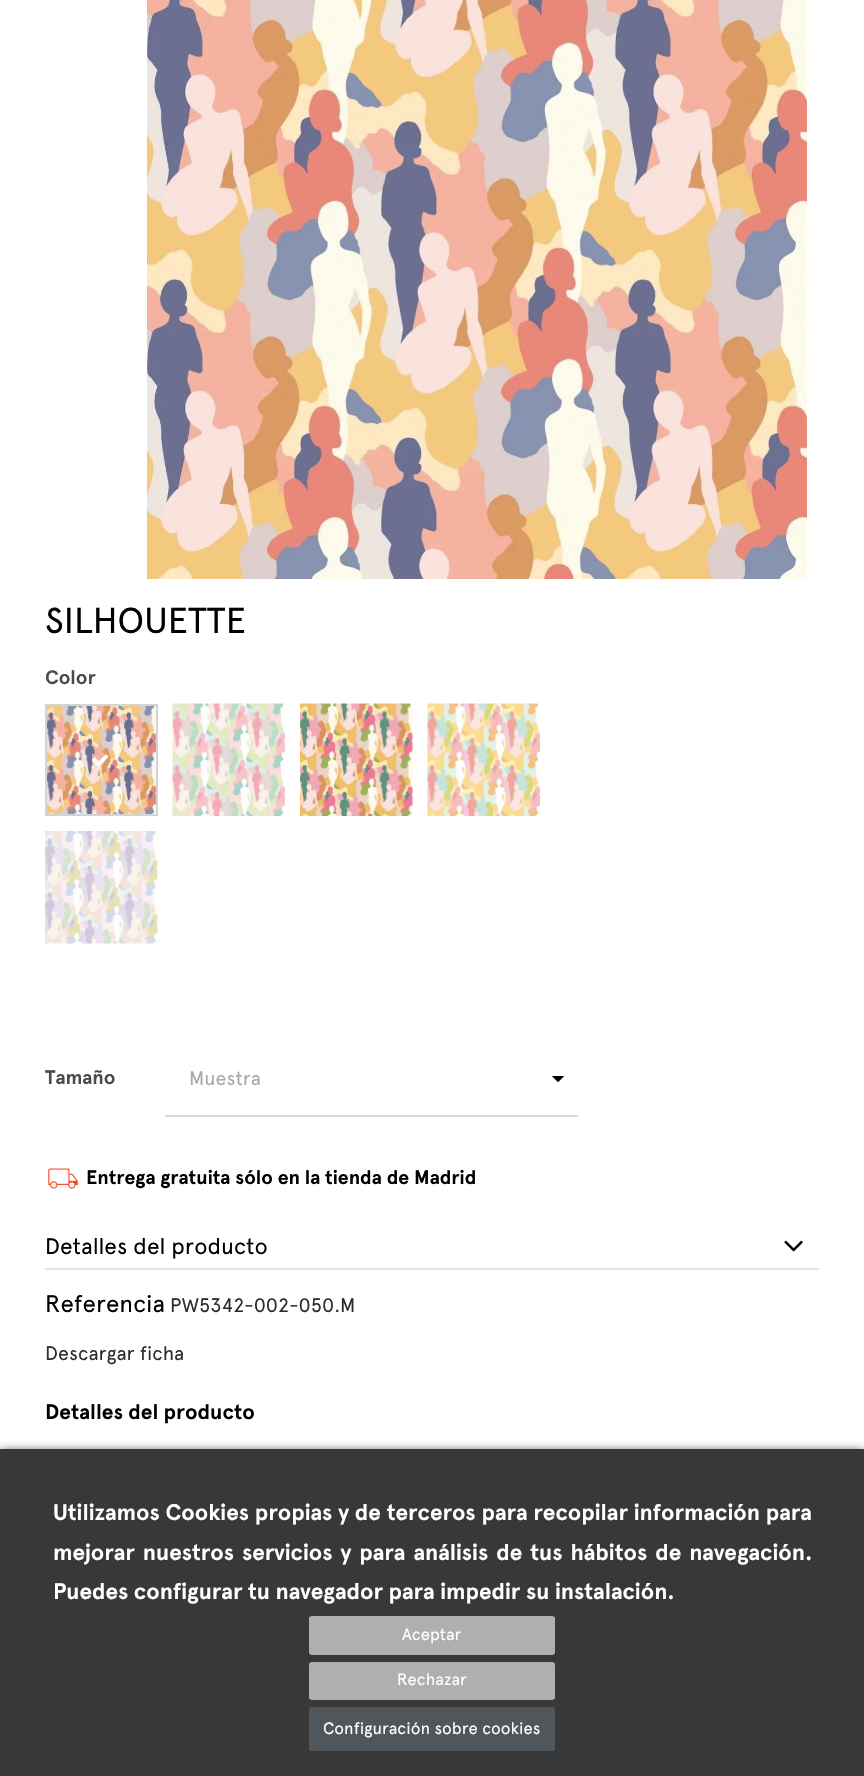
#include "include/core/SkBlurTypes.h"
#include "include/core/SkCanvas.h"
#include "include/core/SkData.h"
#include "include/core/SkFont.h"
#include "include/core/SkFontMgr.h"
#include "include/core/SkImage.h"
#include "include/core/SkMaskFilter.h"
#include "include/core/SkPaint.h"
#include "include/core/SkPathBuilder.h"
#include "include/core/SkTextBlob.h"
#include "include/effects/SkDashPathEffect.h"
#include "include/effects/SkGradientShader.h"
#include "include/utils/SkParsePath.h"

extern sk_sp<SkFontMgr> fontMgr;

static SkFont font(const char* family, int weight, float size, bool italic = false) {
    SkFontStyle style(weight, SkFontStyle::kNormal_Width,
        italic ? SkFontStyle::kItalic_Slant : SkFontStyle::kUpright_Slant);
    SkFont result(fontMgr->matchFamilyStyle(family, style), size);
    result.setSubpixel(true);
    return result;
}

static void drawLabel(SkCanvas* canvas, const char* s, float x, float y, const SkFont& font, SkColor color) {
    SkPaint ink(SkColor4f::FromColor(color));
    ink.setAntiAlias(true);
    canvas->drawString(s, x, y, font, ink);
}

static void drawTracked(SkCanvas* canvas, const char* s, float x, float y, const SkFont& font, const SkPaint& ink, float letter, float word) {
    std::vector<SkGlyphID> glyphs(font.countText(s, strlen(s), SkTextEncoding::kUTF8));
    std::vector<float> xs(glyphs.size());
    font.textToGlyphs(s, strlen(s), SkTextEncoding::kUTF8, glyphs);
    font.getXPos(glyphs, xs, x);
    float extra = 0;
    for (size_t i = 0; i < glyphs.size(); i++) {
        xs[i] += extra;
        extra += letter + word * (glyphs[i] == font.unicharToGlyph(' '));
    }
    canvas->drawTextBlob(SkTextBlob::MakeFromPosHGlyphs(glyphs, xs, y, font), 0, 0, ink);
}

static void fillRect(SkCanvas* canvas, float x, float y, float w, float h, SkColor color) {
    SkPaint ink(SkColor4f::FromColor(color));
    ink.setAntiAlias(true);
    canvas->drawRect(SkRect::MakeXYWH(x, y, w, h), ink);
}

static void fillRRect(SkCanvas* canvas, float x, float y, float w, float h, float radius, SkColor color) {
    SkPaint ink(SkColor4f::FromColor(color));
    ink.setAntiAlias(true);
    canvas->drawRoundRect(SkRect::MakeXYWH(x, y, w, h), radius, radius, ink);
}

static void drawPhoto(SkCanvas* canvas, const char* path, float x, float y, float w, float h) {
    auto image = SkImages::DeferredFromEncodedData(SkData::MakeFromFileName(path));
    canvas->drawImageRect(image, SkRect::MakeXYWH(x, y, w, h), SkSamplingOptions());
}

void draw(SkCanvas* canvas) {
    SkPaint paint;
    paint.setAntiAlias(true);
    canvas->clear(0xFFFFFFFF);
    drawPhoto(canvas, "assets/img1.png", 147, 0, 660, 579);
    SkFont font1 = font("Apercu", 400, 36);
    drawLabel(canvas, "SILHOUETTE", 45, 633, font1, 0xFF000000);
    SkFont font2 = font("Apercu", 700, 19.5f);
    drawLabel(canvas, "Color", 45, 684, font2, 0xFF4A4A4A);
    drawPhoto(canvas, "assets/img2.png", 47, 706, 109, 108);
    paint.setStroke(true);
    paint.setStrokeWidth(2);
    paint.setColor(0xFFD4D4D4);
    canvas->drawRect(SkRect::MakeXYWH(46, 705, 111, 110), paint);
    drawPhoto(canvas, "assets/img3.png", 92, 754, 17, 13);
    drawPhoto(canvas, "assets/img4.png", 172, 703, 113, 113);
    drawPhoto(canvas, "assets/img5.png", 300, 703, 113, 113);
    drawPhoto(canvas, "assets/img6.png", 427, 703, 113, 113);
    drawPhoto(canvas, "assets/img7.png", 45, 831, 113, 113);
    drawLabel(canvas, "Tamaño", 45, 1084, font2, 0xFF4A4A4A);
    drawPhoto(canvas, "assets/img8.png", 551, 1076, 14, 7);
    fillRect(canvas, 165, 1115, 413, 2, 0xFFD8D8D8);
    SkFont font3 = font("Apercu", 400, 19.5f);
    drawLabel(canvas, "Muestra", 189, 1085, font3, 0xFFACAAA6);
    drawPhoto(canvas, "assets/img9.png", 48, 1168, 30, 21);
    drawLabel(canvas, "Entrega gratuita sólo en la tienda de Madrid", 86, 1184, font2, 0xFF000000);
    fillRect(canvas, 45, 1268, 774, 2, 0xFFE3E3E3);
    SkFont font4 = font("Apercu", 400, 22.5f);
    drawLabel(canvas, "Detalles del producto", 45, 1254, font4, 0xFF000000);
    drawPhoto(canvas, "assets/img10.png", 784, 1240, 19, 12);
    SkFont font5 = font("Apercu", 400, 24);
    drawLabel(canvas, "Referencia", 45, 1312, font5, 0xFF000000);
    drawLabel(canvas, "PW5342-002-050.M", 170, 1312, font3, 0xFF2D2D2D);
    drawLabel(canvas, "Descargar ficha", 45, 1360, font3, 0xFF2D2D2D);
    SkFont font6 = font("Apercu", 700, 21);
    drawLabel(canvas, "Detalles del producto", 45, 1419, font6, 0xFF000000);
    paint.setStroke(false);
    paint.setColor(0x80000000);
    paint.setMaskFilter(SkMaskFilter::MakeBlur(kNormal_SkBlurStyle, 4));
    canvas->drawRect(SkRect::MakeXYWH(0, 1449, 864, 327), paint);
    paint.setMaskFilter(nullptr);
    fillRect(canvas, 0, 1449, 864, 327, 0xFF383838);
    SkFont font7 = font("Apercu", 700, 22.5f);
    paint.setColor(0xFFFFFFFF);
    drawTracked(canvas, "Utilizamos Cookies propias y de terceros para recopilar información para", 53, 1520, font7, paint, 0, 0.25f);
    drawTracked(canvas, "mejorar nuestros servicios y para análisis de tus hábitos de navegación.", 53, 1560, font7, paint, 0, 2.4f);
    drawLabel(canvas, "Puedes configurar tu navegador para impedir su instalación.", 53, 1599, font7, 0xFFFFFFFF);
    fillRRect(canvas, 309, 1616, 246, 39, 3, 0xFFAFAFAF);
    SkFont font8 = font("Apercu", 400, 16.5f);
    drawLabel(canvas, "Aceptar", 402, 1640, font8, 0xFFFFFFFF);
    fillRRect(canvas, 309, 1662, 246, 38, 3, 0xFFAFAFAF);
    drawLabel(canvas, "Rechazar", 397, 1685, font8, 0xFFFFFFFF);
    fillRRect(canvas, 309, 1707, 246, 44, 3, 0xFF50575C);
    drawLabel(canvas, "Configuración sobre cookies", 323, 1734, font8, 0xFFFFFFFF);
}
